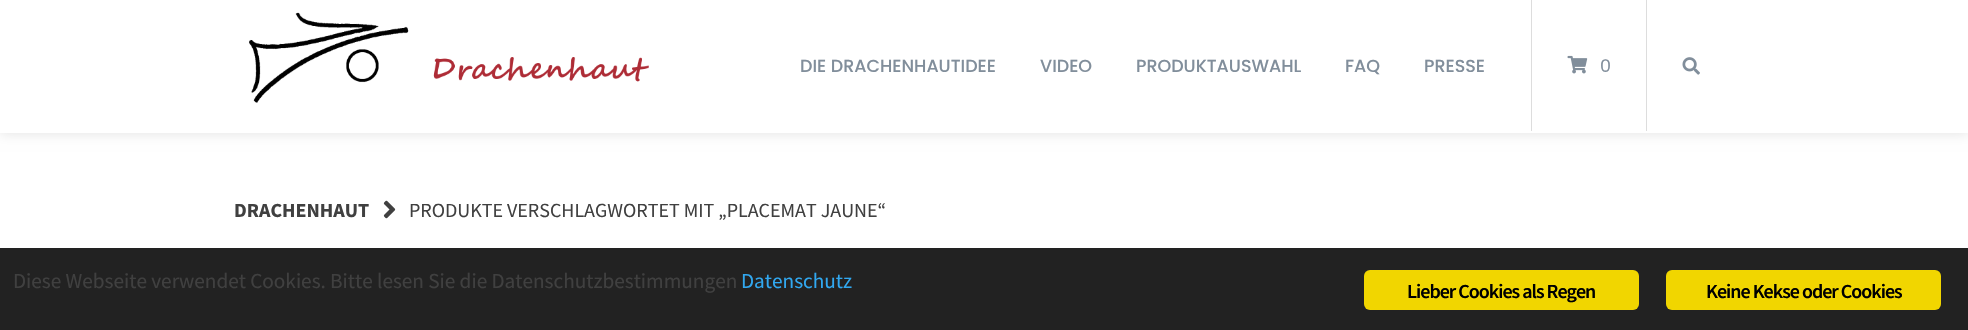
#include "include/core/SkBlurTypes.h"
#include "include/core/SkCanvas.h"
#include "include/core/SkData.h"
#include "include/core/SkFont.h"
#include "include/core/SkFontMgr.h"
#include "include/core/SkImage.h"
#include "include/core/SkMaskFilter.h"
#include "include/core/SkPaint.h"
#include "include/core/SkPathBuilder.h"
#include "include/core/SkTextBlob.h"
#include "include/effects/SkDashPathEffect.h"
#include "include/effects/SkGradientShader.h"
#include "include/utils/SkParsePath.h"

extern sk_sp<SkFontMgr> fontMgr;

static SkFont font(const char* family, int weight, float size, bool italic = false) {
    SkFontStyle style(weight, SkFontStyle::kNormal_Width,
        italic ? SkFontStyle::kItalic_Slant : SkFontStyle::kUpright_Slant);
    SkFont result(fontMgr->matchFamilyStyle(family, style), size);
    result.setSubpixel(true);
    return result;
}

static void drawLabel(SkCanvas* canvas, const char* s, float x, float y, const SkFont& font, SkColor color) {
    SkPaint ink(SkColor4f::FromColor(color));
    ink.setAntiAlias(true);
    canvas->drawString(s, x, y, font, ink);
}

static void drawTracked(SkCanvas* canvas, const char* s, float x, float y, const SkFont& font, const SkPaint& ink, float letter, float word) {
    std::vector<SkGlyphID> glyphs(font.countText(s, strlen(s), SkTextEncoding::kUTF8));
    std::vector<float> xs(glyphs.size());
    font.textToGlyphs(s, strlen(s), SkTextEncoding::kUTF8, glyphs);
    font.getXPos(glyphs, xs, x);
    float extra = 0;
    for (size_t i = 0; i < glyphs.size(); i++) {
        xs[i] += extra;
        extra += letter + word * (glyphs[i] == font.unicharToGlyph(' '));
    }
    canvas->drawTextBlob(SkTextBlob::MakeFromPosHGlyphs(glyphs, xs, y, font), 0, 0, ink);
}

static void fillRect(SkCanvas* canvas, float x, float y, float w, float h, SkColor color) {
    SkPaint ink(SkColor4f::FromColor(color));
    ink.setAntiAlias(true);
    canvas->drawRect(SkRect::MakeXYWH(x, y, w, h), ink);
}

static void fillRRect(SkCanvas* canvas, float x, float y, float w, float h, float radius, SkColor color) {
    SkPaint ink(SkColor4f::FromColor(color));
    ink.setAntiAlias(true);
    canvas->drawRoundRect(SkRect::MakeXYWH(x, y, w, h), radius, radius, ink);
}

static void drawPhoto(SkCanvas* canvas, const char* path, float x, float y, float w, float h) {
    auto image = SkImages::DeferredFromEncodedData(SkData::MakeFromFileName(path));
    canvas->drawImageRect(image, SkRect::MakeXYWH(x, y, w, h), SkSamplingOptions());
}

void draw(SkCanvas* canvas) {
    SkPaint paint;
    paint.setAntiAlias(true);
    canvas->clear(0xFFFFFFFF);
    paint.setColor(0x1A000000);
    paint.setMaskFilter(SkMaskFilter::MakeBlur(kNormal_SkBlurStyle, 6));
    canvas->drawRect(SkRect::MakeXYWH(0, 1, 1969, 133), paint);
    paint.setMaskFilter(nullptr);
    fillRect(canvas, 0, 0, 1968, 133, 0xFFFFFFFF);
    drawPhoto(canvas, "assets/img1.png", 249, 12, 400, 91);
    SkFont font1 = font("Poppins", 500, 17.5f);
    drawLabel(canvas, "DIE DRACHENHAUTIDEE", 800, 72, font1, 0xFF818E9B);
    drawLabel(canvas, "VIDEO", 1040, 72, font1, 0xFF818E9B);
    drawLabel(canvas, "PRODUKTAUSWAHL", 1136, 72, font1, 0xFF818E9B);
    drawLabel(canvas, "FAQ", 1345, 72, font1, 0xFF818E9B);
    drawLabel(canvas, "PRESSE", 1424, 72, font1, 0xFF818E9B);
    fillRect(canvas, 1646, 0, 1, 131, 0xFFDDDDDD);
    fillRect(canvas, 1531, 0, 1, 131, 0xFFDDDDDD);
    drawPhoto(canvas, "assets/img2.png", 1567, 55, 21, 19);
    SkFont font2 = font("Poppins", 400, 17.5f);
    drawLabel(canvas, "0", 1600, 72, font2, 0xFF818E9B);
    drawPhoto(canvas, "assets/img3.png", 1682, 57, 18, 18);
    SkFont font3 = font("Source Sans Pro", 700, 20);
    drawLabel(canvas, "DRACHENHAUT", 234, 217, font3, 0xFF404040);
    drawPhoto(canvas, "assets/img4.png", 383, 200, 13, 19);
    SkFont font4 = font("Source Sans Pro", 400, 20);
    drawLabel(canvas, "PRODUKTE VERSCHLAGWORTET MIT „PLACEMAT JAUNE“", 409, 217, font4, 0xFF404040);
    fillRect(canvas, 0, 248, 1968, 82, 0xFF222222);
    SkFont font5 = font("Source Sans Pro", 400, 21.25f);
    drawLabel(canvas, "Diese Webseite verwendet Cookies. Bitte lesen Sie die Datenschutzbestimmungen", 13, 288, font5, 0xFF404040);
    drawLabel(canvas, "Datenschutz", 741, 288, font5, 0xFF31A8F0);
    fillRRect(canvas, 1364, 270, 275, 40, 6, 0xFFF1D600);
    SkFont font6 = font("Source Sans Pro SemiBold", 600, 20);
    paint.setColor(0xFF000000);
    drawTracked(canvas, "Lieber Cookies als Regen", 1407, 298, font6, paint, -1, 0);
    fillRRect(canvas, 1666, 270, 275, 40, 6, 0xFFF1D600);
    drawTracked(canvas, "Keine Kekse oder Cookies", 1706, 298, font6, paint, -1, 0);
}
